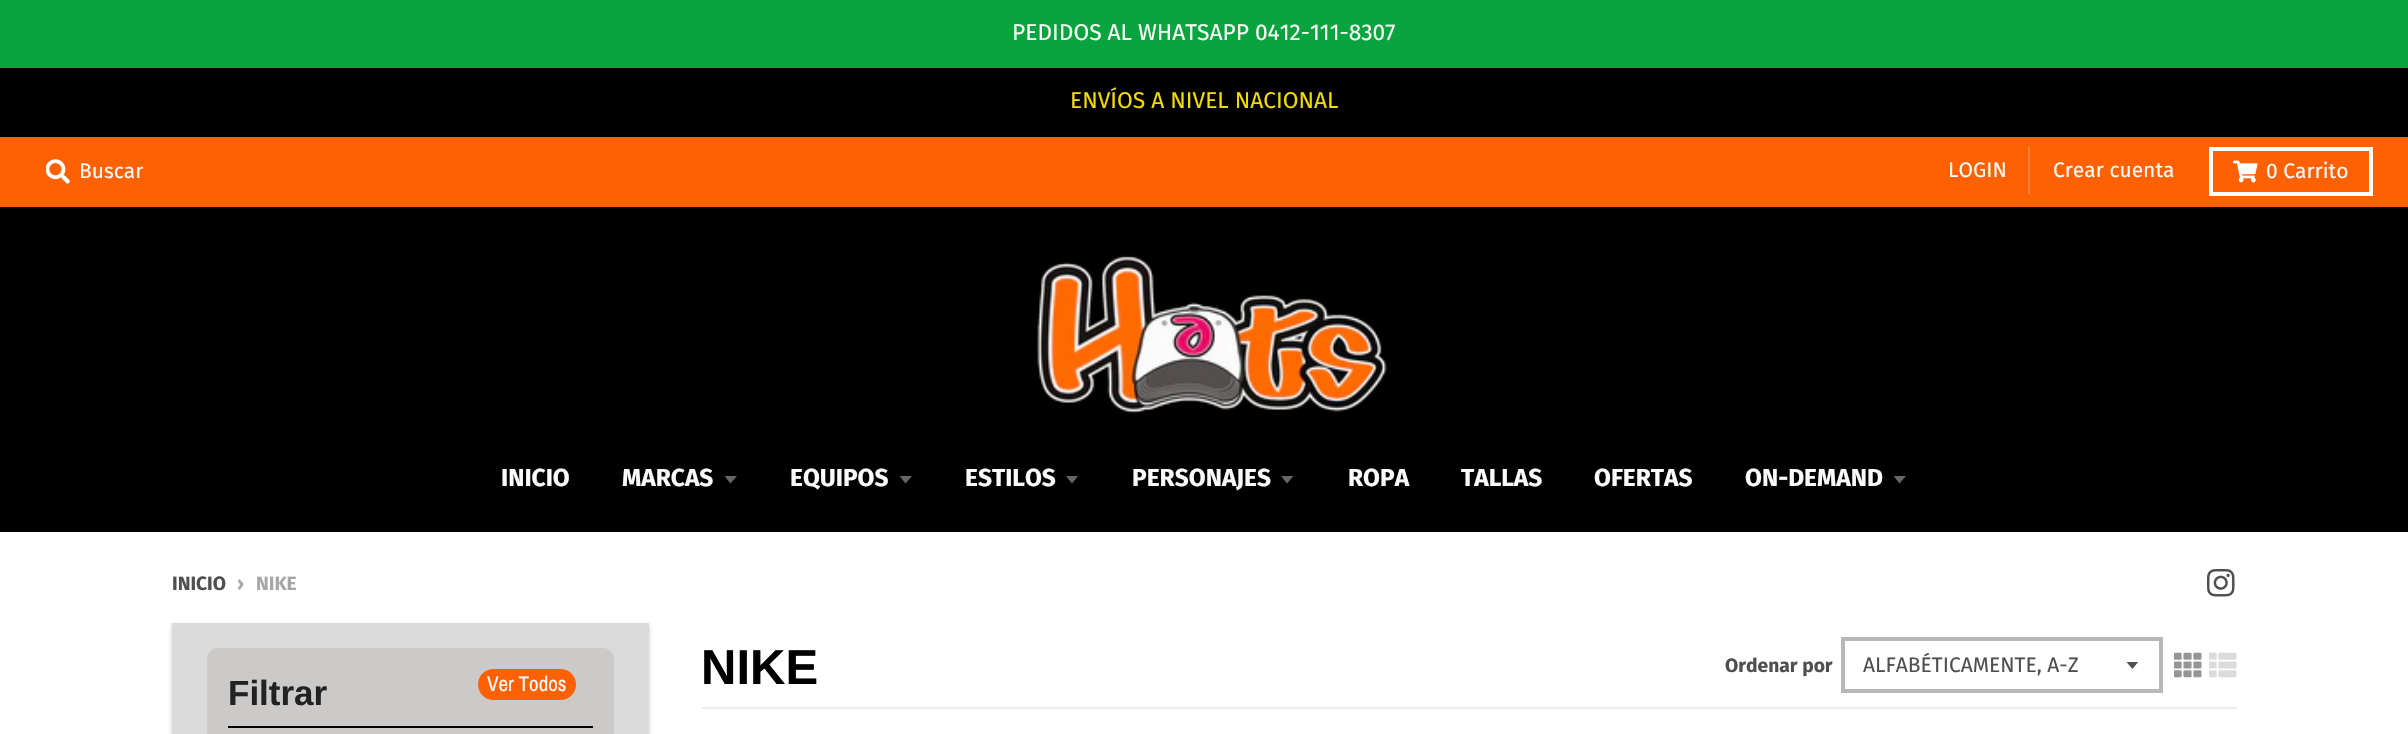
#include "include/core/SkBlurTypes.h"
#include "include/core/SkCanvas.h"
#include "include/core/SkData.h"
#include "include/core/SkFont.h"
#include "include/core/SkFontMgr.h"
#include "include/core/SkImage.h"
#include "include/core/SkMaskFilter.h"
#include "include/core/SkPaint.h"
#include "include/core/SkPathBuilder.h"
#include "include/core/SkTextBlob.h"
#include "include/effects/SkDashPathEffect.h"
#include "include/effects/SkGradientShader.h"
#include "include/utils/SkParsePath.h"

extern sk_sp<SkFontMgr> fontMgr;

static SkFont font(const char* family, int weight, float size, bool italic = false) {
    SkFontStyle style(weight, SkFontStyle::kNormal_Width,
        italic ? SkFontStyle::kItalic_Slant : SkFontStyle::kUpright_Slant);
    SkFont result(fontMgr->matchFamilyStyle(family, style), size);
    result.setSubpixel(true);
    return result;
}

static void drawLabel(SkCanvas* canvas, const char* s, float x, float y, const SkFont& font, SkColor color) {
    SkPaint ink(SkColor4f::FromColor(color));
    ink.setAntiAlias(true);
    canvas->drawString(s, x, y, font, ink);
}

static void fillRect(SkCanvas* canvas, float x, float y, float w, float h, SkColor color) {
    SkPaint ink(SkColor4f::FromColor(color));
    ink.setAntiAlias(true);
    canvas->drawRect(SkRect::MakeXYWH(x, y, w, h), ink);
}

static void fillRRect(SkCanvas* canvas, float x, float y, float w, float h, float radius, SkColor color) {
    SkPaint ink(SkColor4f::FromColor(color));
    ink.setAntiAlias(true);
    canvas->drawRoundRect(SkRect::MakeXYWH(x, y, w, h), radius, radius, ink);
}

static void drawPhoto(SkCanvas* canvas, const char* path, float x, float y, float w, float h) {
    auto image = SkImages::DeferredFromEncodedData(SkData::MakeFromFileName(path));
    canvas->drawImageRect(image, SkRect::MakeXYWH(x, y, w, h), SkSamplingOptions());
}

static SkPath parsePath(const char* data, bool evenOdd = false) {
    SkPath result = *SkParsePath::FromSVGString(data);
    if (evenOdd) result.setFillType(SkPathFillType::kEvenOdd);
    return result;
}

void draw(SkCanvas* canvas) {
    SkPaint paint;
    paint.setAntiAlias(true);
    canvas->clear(0xFFFFFFFF);
    fillRect(canvas, 0, 0, 2408, 68, 0xFF09A43D);
    SkFont font1 = font("Fira Sans", 400, 22.75f);
    drawLabel(canvas, "PEDIDOS AL WHATSAPP 0412-111-8307", 1012, 40, font1, 0xFFFAFAFA);
    fillRect(canvas, 0, 68, 2408, 69, 0xFF000000);
    drawLabel(canvas, "ENVÍOS A NIVEL NACIONAL", 1070, 108, font1, 0xFFF2DA06);
    fillRect(canvas, 0, 137, 2408, 70, 0xFFFD6103);
    drawPhoto(canvas, "assets/img1.png", 46, 159, 24, 25);
    SkFont font2 = font("Fira Sans", 400, 21);
    drawLabel(canvas, "Buscar", 79, 178, font2, 0xFFFAFAFA);
    fillRect(canvas, 2028, 147, 2, 47, 0xFFFD8035);
    drawLabel(canvas, "LOGIN", 1948, 177, font2, 0xFFFAFAFA);
    drawLabel(canvas, "Crear cuenta", 2053, 177, font2, 0xFFFAFAFA);
    paint.setStroke(true);
    paint.setStrokeWidth(4);
    paint.setColor(0xFFFFFFFF);
    canvas->drawRect(SkRect::MakeXYWH(2211, 149, 160, 45), paint);
    drawPhoto(canvas, "assets/img2.png", 2233, 160, 25, 23);
    drawLabel(canvas, "0 Carrito", 2266, 178, font2, 0xFFFAFAFA);
    fillRect(canvas, 0, 207, 2408, 325, 0xFF000000);
    drawPhoto(canvas, "assets/img3.png", 1037, 255, 350, 159);
    SkFont font3 = font("Fira Sans", 700, 24.5f);
    drawLabel(canvas, "INICIO", 501, 486, font3, 0xFFFAFAFA);
    drawLabel(canvas, "MARCAS", 622, 486, font3, 0xFFFAFAFA);
    paint.setStroke(false);
    paint.setColor(0xFF666666);
    canvas->drawPath(parsePath("M724.5 476L730.5 483.5L737 476Z"), paint);
    drawLabel(canvas, "EQUIPOS", 790, 486, font3, 0xFFFAFAFA);
    canvas->drawPath(parsePath("M899.5 476L905.5 483.5L912 476Z"), paint);
    drawLabel(canvas, "ESTILOS", 965, 486, font3, 0xFFFAFAFA);
    canvas->drawPath(parsePath("M1066 476L1072 483.5L1078 476Z"), paint);
    drawLabel(canvas, "PERSONAJES", 1132, 486, font3, 0xFFFAFAFA);
    canvas->drawPath(parsePath("M1281 476L1287 483.5L1293.5 476Z"), paint);
    drawLabel(canvas, "ROPA", 1348, 486, font3, 0xFFFAFAFA);
    drawLabel(canvas, "TALLAS", 1461, 486, font3, 0xFFFAFAFA);
    drawLabel(canvas, "OFERTAS", 1594, 486, font3, 0xFFFAFAFA);
    drawLabel(canvas, "ON-DEMAND", 1745, 486, font3, 0xFFFAFAFA);
    canvas->drawPath(parsePath("M1893.5 476L1899.5 483.5L1906 476Z"), paint);
    SkFont font4 = font("Fira Sans", 700, 19.25f);
    drawLabel(canvas, "INICIO", 172, 590, font4, 0xFF4F4F4F);
    drawLabel(canvas, "›", 237, 590, font4, 0xFFA7A7A7);
    drawLabel(canvas, "NIKE", 256, 590, font4, 0xFFA7A7A7);
    drawPhoto(canvas, "assets/img4.png", 2206, 568, 29, 29);
    fillRect(canvas, 702, 707, 1535, 2, 0xFFEDEDED);
    SkFont font5 = font("Arimo", 700, 49);
    drawLabel(canvas, "NIKE", 701, 684, font5, 0xFF000000);
    drawLabel(canvas, "Ordenar por", 1725, 672, font4, 0xFF4F4F4F);
    canvas->save();
    canvas->clipRect(SkRect::MakeXYWH(2126, 662, 14, 8));
    paint.setColor(0xFF4F4F4F);
    canvas->drawPath(parsePath("M2126 661.5L2132.5 669L2138.5 661.5Z"), paint);
    canvas->restore();
    paint.setStroke(true);
    paint.setColor(0xFFB8B8B8);
    canvas->drawRect(SkRect::MakeXYWH(1843, 639, 318, 52), paint);
    drawLabel(canvas, "ALFABÉTICAMENTE, A-Z", 1863, 672, font2, 0xFF4F4F4F);
    drawPhoto(canvas, "assets/img5.png", 2174, 652, 28, 26);
    drawPhoto(canvas, "assets/img6.png", 2209, 652, 28, 26);
    paint.setStroke(false);
    paint.setColor(0x33000000);
    paint.setMaskFilter(SkMaskFilter::MakeBlur(kNormal_SkBlurStyle, 2));
    canvas->drawRect(SkRect::MakeXYWH(172, 625, 477, 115), paint);
    paint.setMaskFilter(nullptr);
    fillRect(canvas, 172, 623, 477, 111, 0xFFDCDBDB);
    paint.setColor(0xFFCCCAC9);
    canvas->drawRoundRect(SkRect::MakeXYWH(208, 649, 405, 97), 10, 10, paint);
    paint.setStroke(true);
    paint.setStrokeWidth(2);
    canvas->drawRoundRect(SkRect::MakeXYWH(208, 649, 405, 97), 10, 10, paint);
    fillRect(canvas, 228, 726, 365, 2, 0xFF000000);
    SkFont font6 = font("Arimo", 700, 35);
    drawLabel(canvas, "Filtrar", 228, 705, font6, 0xFF222222);
    fillRRect(canvas, 478, 669, 98, 31, 15.5f, 0xFFFD6103);
    SkFont font7 = font("Archivo Narrow", 400, 21);
    drawLabel(canvas, "Ver Todos", 487, 691, font7, 0xFFFAFAFA);
}
